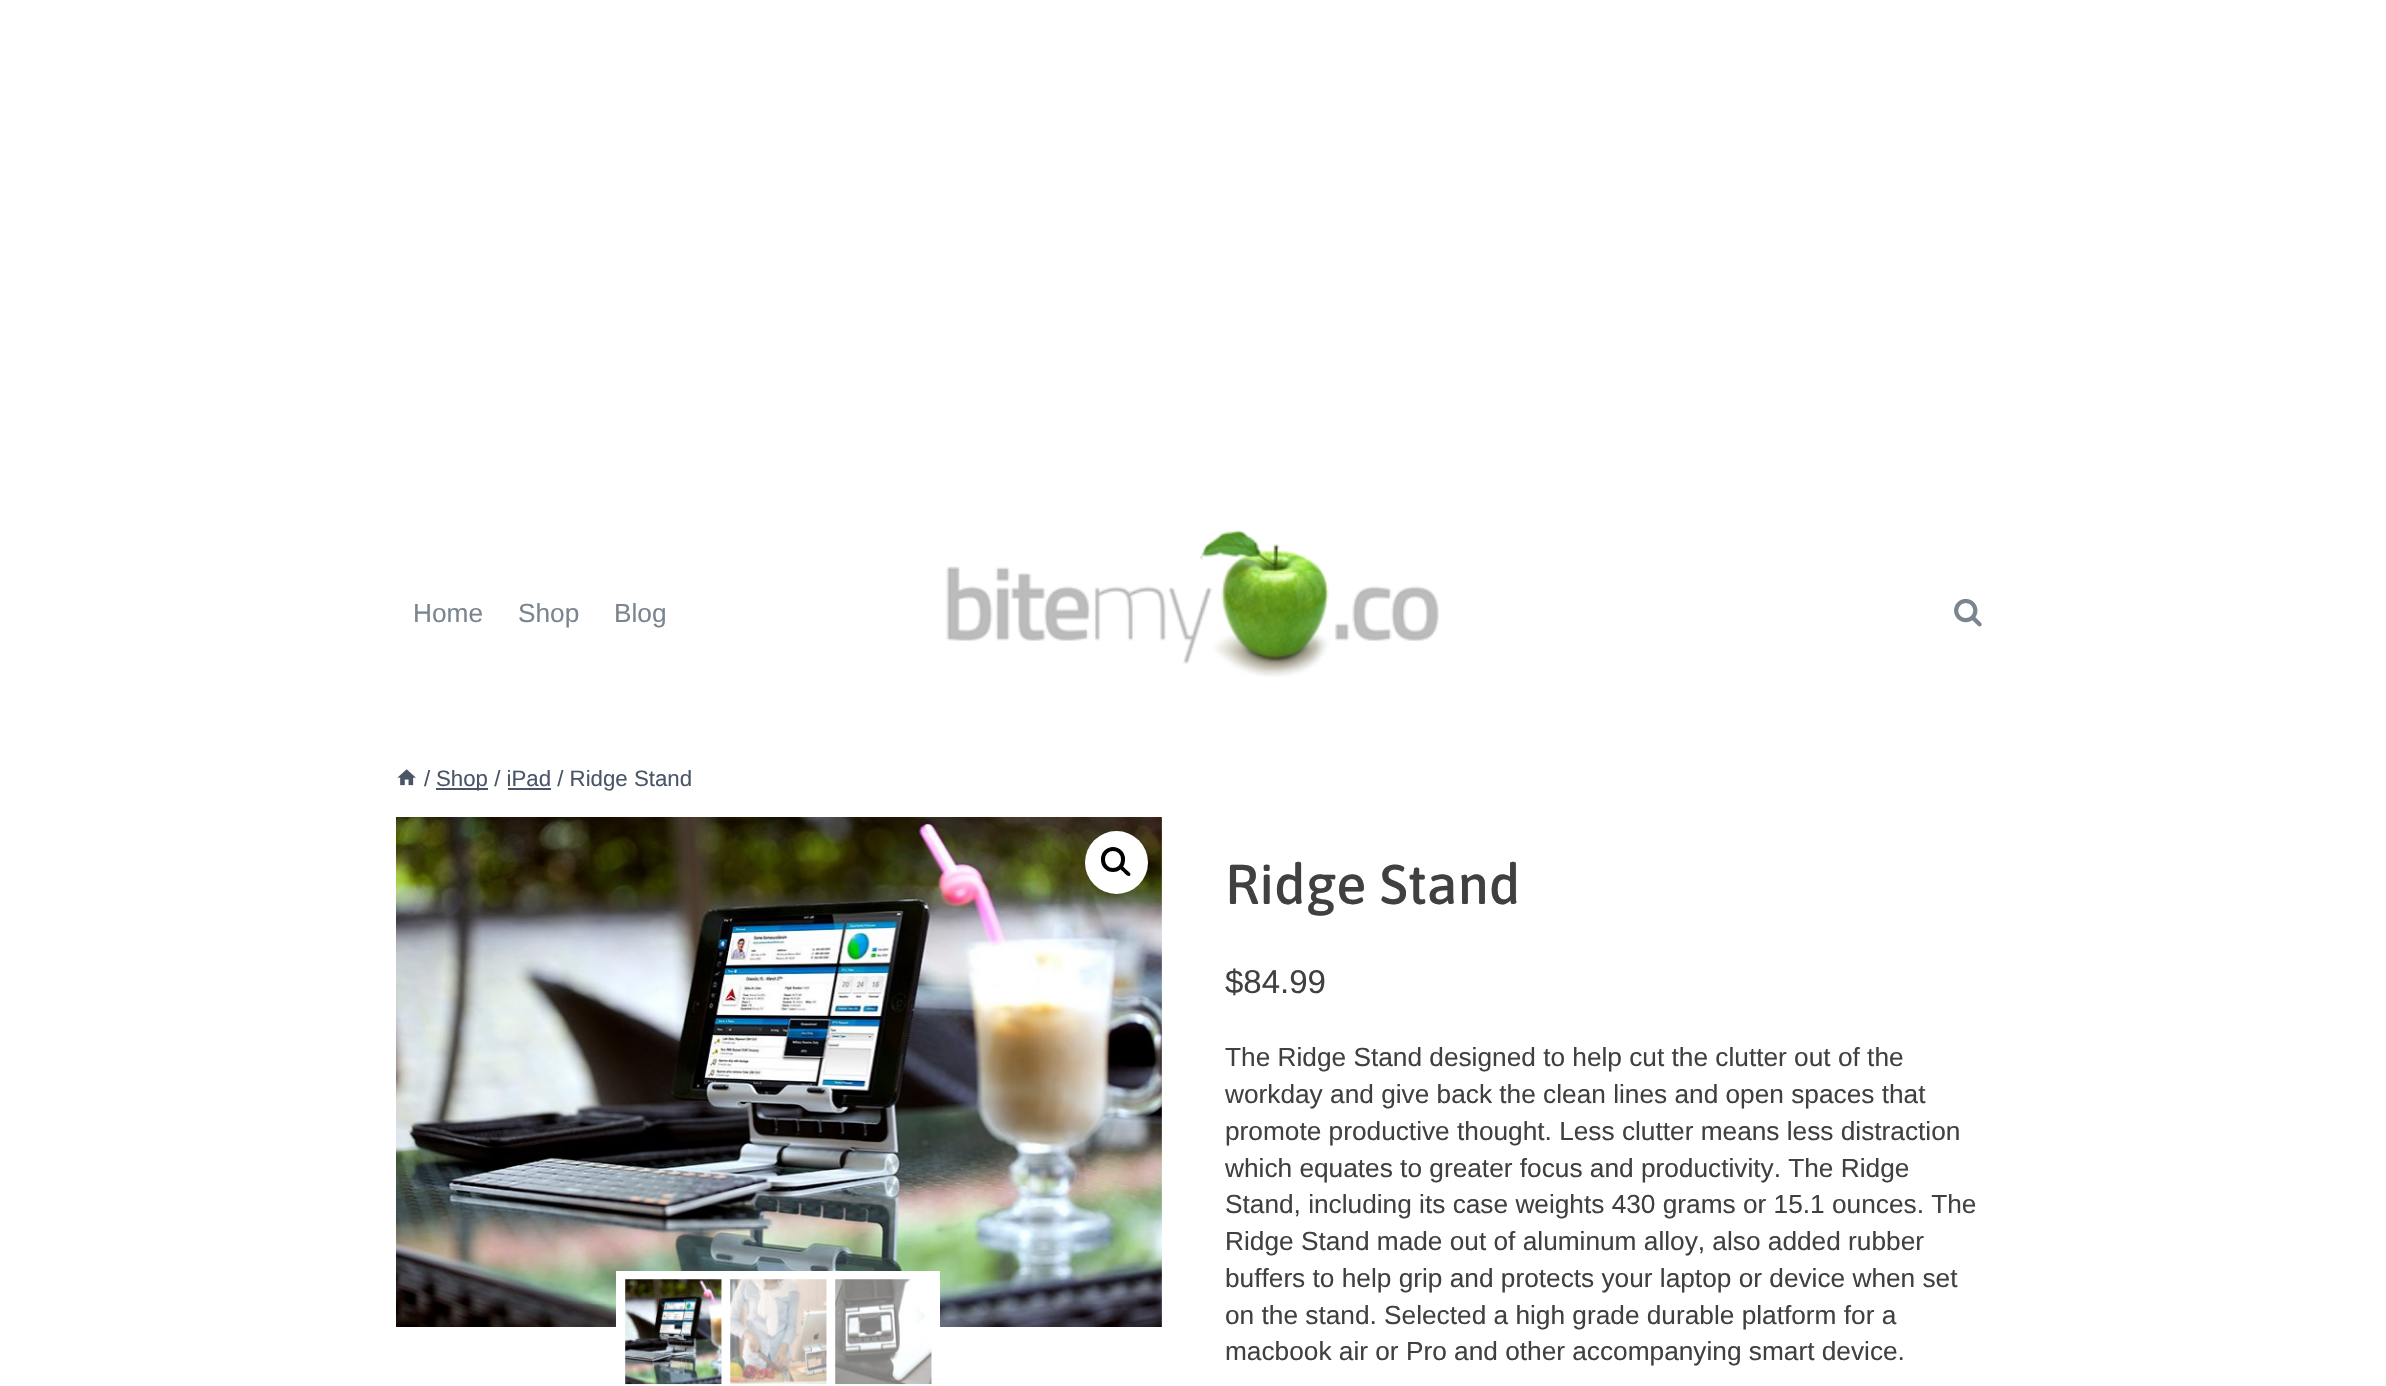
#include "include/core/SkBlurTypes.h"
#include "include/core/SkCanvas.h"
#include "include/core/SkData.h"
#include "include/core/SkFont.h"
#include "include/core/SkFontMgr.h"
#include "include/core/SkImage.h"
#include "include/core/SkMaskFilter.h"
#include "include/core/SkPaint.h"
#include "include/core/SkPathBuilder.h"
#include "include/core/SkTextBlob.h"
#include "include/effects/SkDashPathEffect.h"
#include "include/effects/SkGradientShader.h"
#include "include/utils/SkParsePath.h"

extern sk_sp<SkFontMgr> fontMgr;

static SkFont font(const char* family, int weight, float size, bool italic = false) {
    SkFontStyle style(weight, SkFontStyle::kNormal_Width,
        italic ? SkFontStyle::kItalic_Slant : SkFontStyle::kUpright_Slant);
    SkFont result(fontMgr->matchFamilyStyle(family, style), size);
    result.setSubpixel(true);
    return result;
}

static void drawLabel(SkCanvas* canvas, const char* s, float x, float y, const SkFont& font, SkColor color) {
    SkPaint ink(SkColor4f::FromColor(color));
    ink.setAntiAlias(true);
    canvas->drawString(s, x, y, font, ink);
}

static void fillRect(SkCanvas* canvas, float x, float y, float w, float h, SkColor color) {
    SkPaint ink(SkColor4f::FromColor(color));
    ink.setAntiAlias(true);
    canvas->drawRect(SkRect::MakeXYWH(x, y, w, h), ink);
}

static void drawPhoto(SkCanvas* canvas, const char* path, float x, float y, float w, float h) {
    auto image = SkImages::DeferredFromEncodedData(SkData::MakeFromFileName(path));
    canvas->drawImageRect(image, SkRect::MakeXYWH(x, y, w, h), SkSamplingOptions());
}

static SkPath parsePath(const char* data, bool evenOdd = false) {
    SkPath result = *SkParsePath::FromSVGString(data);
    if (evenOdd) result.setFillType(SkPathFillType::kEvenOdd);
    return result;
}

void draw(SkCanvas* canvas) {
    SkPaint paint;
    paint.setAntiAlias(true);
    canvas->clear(0xFFFFFFFF);
    SkFont font1 = font("Liberation Sans", 400, 26.25f);
    drawLabel(canvas, "Home", 413, 622, font1, 0xFF7B858F);
    drawLabel(canvas, "Shop", 518, 622, font1, 0xFF7B858F);
    drawLabel(canvas, "Blog", 614, 622, font1, 0xFF7B858F);
    drawPhoto(canvas, "assets/img1.png", 946, 530, 493, 147);
    drawPhoto(canvas, "assets/img2.png", 1954, 598, 28, 29);
    drawPhoto(canvas, "assets/img3.png", 397, 769, 19, 17);
    SkFont font2 = font("Liberation Sans", 400, 22.25f);
    drawLabel(canvas, "/", 424, 786, font2, 0xFF4A5568);
    fillRect(canvas, 436, 788, 52, 2, 0xFF4A5568);
    drawLabel(canvas, "Shop / iPad / Ridge Stand", 436, 786, font2, 0xFF4A5568);
    fillRect(canvas, 508, 788, 43, 2, 0xFF4A5568);
    drawPhoto(canvas, "assets/img5.png", 1161, 817, 1, 510);
    drawPhoto(canvas, "assets/img4.png", 396, 817, 766, 510);
    paint.setColor(0xFFFFFFFF);
    canvas->drawCircle(1116.5f, 862.5f, 31.5f, paint);
    paint.setStroke(true);
    paint.setStrokeWidth(4);
    paint.setColor(0xFF000000);
    canvas->drawRoundRect(SkRect::MakeXYWH(1103, 849, 20, 21), 10, 10, paint);
    paint.setStroke(false);
    canvas->drawPath(parsePath("M1120 866C1122 864 1125 868.5 1126 869.5C1127 870.5 1132 873.5 1130 875.5C1128 877.5 1124.5 873 1123.5 872C1122.5 871 1118 868 1120 866Z"), paint);
    fillRect(canvas, 616, 1271, 324, 56, 0xFFFFFFFF);
    drawPhoto(canvas, "assets/img6.png", 625, 1279, 97, 106);
    drawPhoto(canvas, "assets/img7.png", 730, 1279, 97, 105);
    drawPhoto(canvas, "assets/img8.png", 835, 1279, 97, 106);
    SkFont font3 = font("Asap", 500, 56);
    drawLabel(canvas, "Ridge Stand", 1225, 904, font3, 0xFF404040);
    SkFont font4 = font("Liberation Sans", 400, 33);
    drawLabel(canvas, "$84.99", 1225, 993, font4, 0xFF404040);
    drawLabel(canvas, "The Ridge Stand designed to help cut the clutter out of the", 1225, 1066, font1, 0xFF404040);
    drawLabel(canvas, "workday and give back the clean lines and open spaces that", 1225, 1103, font1, 0xFF404040);
    drawLabel(canvas, "promote productive thought. Less clutter means less distraction", 1225, 1140, font1, 0xFF404040);
    drawLabel(canvas, "which equates to greater focus and productivity. The Ridge", 1225, 1177, font1, 0xFF404040);
    drawLabel(canvas, "Stand, including its case weights 430 grams or 15.1 ounces. The", 1225, 1213, font1, 0xFF404040);
    drawLabel(canvas, "Ridge Stand made out of aluminum alloy, also added rubber", 1225, 1250, font1, 0xFF404040);
    drawLabel(canvas, "buffers to help grip and protects your laptop or device when set", 1225, 1287, font1, 0xFF404040);
    drawLabel(canvas, "on the stand. Selected a high grade durable platform for a", 1225, 1324, font1, 0xFF404040);
    drawLabel(canvas, "macbook air or Pro and other accompanying smart device.", 1225, 1360, font1, 0xFF404040);
}
